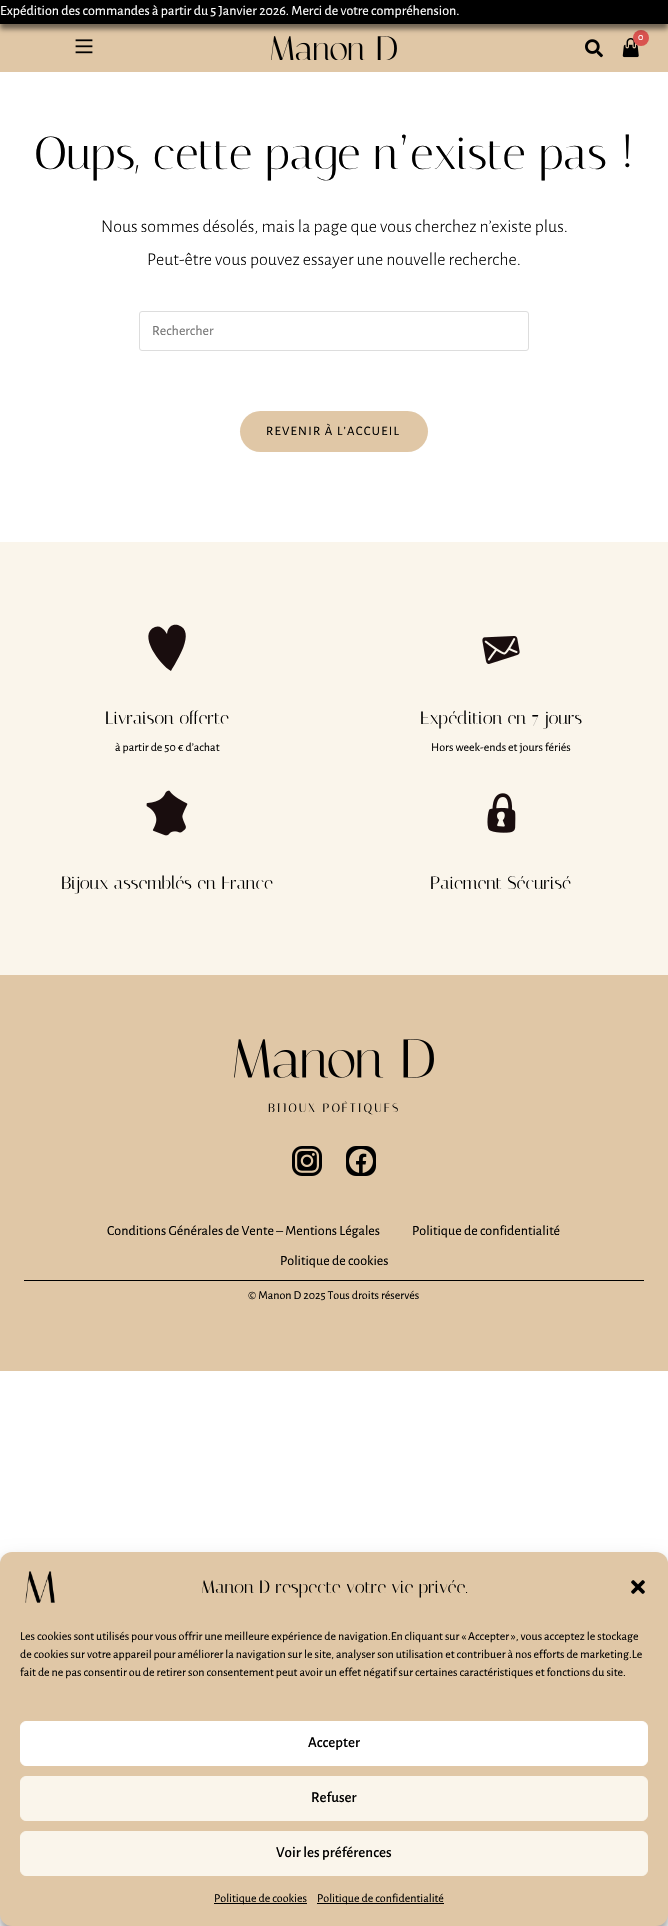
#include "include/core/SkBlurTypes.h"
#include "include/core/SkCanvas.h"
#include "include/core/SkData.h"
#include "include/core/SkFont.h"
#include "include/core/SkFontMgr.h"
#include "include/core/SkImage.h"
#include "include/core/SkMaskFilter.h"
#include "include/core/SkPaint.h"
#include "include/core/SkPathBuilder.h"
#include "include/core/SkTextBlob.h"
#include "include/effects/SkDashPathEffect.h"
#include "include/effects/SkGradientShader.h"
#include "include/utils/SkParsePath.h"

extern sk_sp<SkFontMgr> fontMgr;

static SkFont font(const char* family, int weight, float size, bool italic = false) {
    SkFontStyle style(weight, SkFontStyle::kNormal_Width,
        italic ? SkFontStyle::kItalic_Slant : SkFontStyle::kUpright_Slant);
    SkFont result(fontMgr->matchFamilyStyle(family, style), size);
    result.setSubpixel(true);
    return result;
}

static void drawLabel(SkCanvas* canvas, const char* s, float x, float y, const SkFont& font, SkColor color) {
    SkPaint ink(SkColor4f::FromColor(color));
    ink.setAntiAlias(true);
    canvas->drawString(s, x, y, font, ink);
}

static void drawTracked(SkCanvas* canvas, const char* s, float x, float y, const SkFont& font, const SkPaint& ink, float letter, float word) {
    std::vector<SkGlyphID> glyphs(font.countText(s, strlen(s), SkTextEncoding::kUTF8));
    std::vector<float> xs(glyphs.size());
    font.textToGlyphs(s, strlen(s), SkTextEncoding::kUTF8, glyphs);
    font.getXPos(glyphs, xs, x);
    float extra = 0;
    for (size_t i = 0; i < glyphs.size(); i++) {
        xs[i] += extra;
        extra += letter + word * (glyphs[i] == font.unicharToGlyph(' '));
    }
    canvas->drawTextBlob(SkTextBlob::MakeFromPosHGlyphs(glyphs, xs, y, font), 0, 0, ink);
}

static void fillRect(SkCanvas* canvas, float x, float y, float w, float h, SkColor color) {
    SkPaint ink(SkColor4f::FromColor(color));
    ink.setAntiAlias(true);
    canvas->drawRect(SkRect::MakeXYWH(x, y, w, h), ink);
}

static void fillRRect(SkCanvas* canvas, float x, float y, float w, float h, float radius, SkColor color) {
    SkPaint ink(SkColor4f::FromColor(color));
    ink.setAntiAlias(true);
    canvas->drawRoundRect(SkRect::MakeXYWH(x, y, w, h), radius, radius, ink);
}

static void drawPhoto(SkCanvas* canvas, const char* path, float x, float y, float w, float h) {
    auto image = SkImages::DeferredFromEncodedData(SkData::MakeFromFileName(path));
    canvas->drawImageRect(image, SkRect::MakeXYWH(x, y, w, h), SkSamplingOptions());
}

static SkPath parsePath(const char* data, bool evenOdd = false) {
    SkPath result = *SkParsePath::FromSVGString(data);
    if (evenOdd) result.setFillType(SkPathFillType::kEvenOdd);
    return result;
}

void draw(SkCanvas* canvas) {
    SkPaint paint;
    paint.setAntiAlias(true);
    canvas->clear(0xFFFFFFFF);
    fillRect(canvas, 0, 24, 668, 48, 0xFFE0C7A6);
    drawPhoto(canvas, "assets/img2.png", 271, 36, 126, 24);
    drawPhoto(canvas, "assets/img3.png", 622, 38, 17, 20);
    paint.setColor(0xFFD9534F);
    canvas->drawCircle(641, 38, 8, paint);
    paint.setColor(0x80000000);
    paint.setMaskFilter(SkMaskFilter::MakeBlur(kNormal_SkBlurStyle, 2.5f));
    canvas->drawRect(SkRect::MakeXYWH(0, 5, 668, 24), paint);
    paint.setMaskFilter(nullptr);
    fillRect(canvas, 0, 0, 668, 24, 0xFF000000);
    SkFont font1 = font("Alegreya Sans", 400, 14);
    drawLabel(canvas, "Expédition des commandes à partir du 5 Janvier 2026. Merci de votre compréhension.", 0, 15, font1, 0xFFFFFFFF);
    drawPhoto(canvas, "assets/img1.png", 75, 39, 18, 15);
    SkFont font2 = font("Alegreya Sans", 400, 10);
    drawLabel(canvas, "0", 638, 40, font2, 0xFFFFFFFF);
    drawPhoto(canvas, "assets/img4.png", 585, 39, 18, 19);
    SkFont font3 = font("Italiana", 400, 46);
    drawLabel(canvas, "Oups, cette page n’existe pas !", 34, 169, font3, 0xFF000000);
    SkFont font4 = font("Alegreya Sans", 300, 18);
    drawLabel(canvas, "Nous sommes désolés, mais la page que vous cherchez n’existe plus.", 101, 232, font4, 0xFF000000);
    drawLabel(canvas, "Peut-être vous pouvez essayer une nouvelle recherche.", 147, 265, font4, 0xFF000000);
    paint.setStroke(true);
    paint.setStrokeWidth(1);
    paint.setColor(0xFFDDDDDD);
    canvas->drawRoundRect(SkRect::MakeXYWH(139.5f, 311.5f, 389, 39), 2.5f, 2.5f, paint);
    drawLabel(canvas, "Rechercher", 152, 335, font1, 0xFF757575);
    fillRRect(canvas, 240, 411, 188, 41, 20.5f, 0xFFE0C7A6);
    SkFont font5 = font("Alegreya Sans", 400, 13);
    paint.setStroke(false);
    paint.setColor(0xFF000000);
    drawTracked(canvas, "REVENIR À L’ACCUEIL", 266, 435, font5, paint, 1.25f, 0);
    fillRect(canvas, 0, 542, 668, 433, 0xFFFAF5EB);
    paint.setColor(0xFF190D0E);
    canvas->drawPath(parsePath("M167 634C167 634 162 624 155 627C137 634 160 665 171 671C176 662 197 631 178 625C174 624 168 625 167 634Z"), paint);
    SkFont font6 = font("Italiana", 400, 18);
    drawLabel(canvas, "Livraison offerte", 105, 724, font6, 0xFF000000);
    SkFont font7 = font("Alegreya Sans", 400, 12);
    drawLabel(canvas, "à partir de 50 € d’achat", 115, 751, font7, 0xFF000000);
    drawPhoto(canvas, "assets/img5.png", 482, 636, 38, 28);
    drawLabel(canvas, "Expédition en 7 jours", 420, 724, font6, 0xFF000000);
    drawLabel(canvas, "Hors week-ends et jours fériés", 431, 751, font7, 0xFF000000);
    drawPhoto(canvas, "assets/img6.png", 146, 790, 42, 46);
    drawLabel(canvas, "Bijoux assemblés en France", 61, 889, font6, 0xFF000000);
    drawPhoto(canvas, "assets/img7.png", 487, 793, 29, 40);
    drawLabel(canvas, "Paiement Sécurisé", 430, 889, font6, 0xFF000000);
    fillRect(canvas, 0, 975, 668, 396, 0xFFE0C7A6);
    drawPhoto(canvas, "assets/img8.png", 234, 1039, 200, 39);
    SkFont font8 = font("Italiana", 400, 12);
    paint.setColor(0xFF000000);
    drawTracked(canvas, "BIJOUX POÊTIQUES", 268, 1112, font8, paint, 2, 0);
    drawPhoto(canvas, "assets/img9.png", 292, 1146, 30, 30);
    drawPhoto(canvas, "assets/img10.png", 346, 1146, 30, 30);
    drawLabel(canvas, "Conditions Générales de Vente – Mentions Légales", 107, 1235, font1, 0xFF000000);
    drawLabel(canvas, "Politique de confidentialité", 412, 1235, font1, 0xFF000000);
    drawLabel(canvas, "Politique de cookies", 280, 1265, font1, 0xFF000000);
    fillRect(canvas, 24, 1280, 620, 1, 0xFF000000);
    drawLabel(canvas, "© Manon D 2025 Tous droits réservés", 248, 1299, font7, 0xFF000000);
    paint.setColor(0x3B000000);
    paint.setMaskFilter(SkMaskFilter::MakeBlur(kNormal_SkBlurStyle, 3));
    canvas->drawRoundRect(SkRect::MakeXYWH(0, 1558, 668, 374), 12, 12, paint);
    paint.setMaskFilter(nullptr);
    paint.setColor(0x30000000);
    paint.setMaskFilter(SkMaskFilter::MakeBlur(kNormal_SkBlurStyle, 10));
    canvas->drawRoundRect(SkRect::MakeXYWH(0, 1562, 668, 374), 12, 12, paint);
    paint.setMaskFilter(nullptr);
    fillRRect(canvas, 0, 1552, 668, 374, 12, 0xFFE0C7A6);
    drawPhoto(canvas, "assets/img11.png", 25, 1571, 30, 32);
    drawLabel(canvas, "Manon D respecte votre vie privée.", 201, 1593, font6, 0xFF000000);
    drawPhoto(canvas, "assets/img12.png", 631, 1580, 14, 14);
    drawLabel(canvas, "Les cookies sont utilisés pour vous offrir une meilleure expérience de navigation.En cliquant sur « Accepter », vous acceptez le stockage", 20, 1640, font7, 0xFF000000);
    drawLabel(canvas, "de cookies sur votre appareil pour améliorer la navigation sur le site, analyser son utilisation et contribuer à nos efforts de marketing.Le", 20, 1658, font7, 0xFF000000);
    drawLabel(canvas, "fait de ne pas consentir ou de retirer son consentement peut avoir un effet négatif sur certaines caractéristiques et fonctions du site.", 20, 1676, font7, 0xFF000000);
    paint.setColor(0xFFFFFFFF);
    canvas->drawRoundRect(SkRect::MakeXYWH(20.5f, 1721.5f, 627, 44), 5.5f, 5.5f, paint);
    paint.setStroke(true);
    canvas->drawRoundRect(SkRect::MakeXYWH(20.5f, 1721.5f, 627, 44), 5.5f, 5.5f, paint);
    SkFont font9 = font("Alegreya Sans", 500, 15);
    drawLabel(canvas, "Accepter", 308, 1747, font9, 0xFF000000);
    paint.setStroke(false);
    paint.setColor(0xFFFAF5EB);
    canvas->drawRoundRect(SkRect::MakeXYWH(20.5f, 1776.5f, 627, 44), 5.5f, 5.5f, paint);
    paint.setStroke(true);
    canvas->drawRoundRect(SkRect::MakeXYWH(20.5f, 1776.5f, 627, 44), 5.5f, 5.5f, paint);
    drawLabel(canvas, "Refuser", 311, 1802, font9, 0xFF000000);
    paint.setStroke(false);
    canvas->drawRoundRect(SkRect::MakeXYWH(20.5f, 1831.5f, 627, 44), 5.5f, 5.5f, paint);
    paint.setStroke(true);
    canvas->drawRoundRect(SkRect::MakeXYWH(20.5f, 1831.5f, 627, 44), 5.5f, 5.5f, paint);
    drawLabel(canvas, "Voir les préférences", 276, 1857, font9, 0xFF000000);
    fillRect(canvas, 214, 1903, 93, 1, 0xFF000000);
    drawLabel(canvas, "Politique de cookies", 214, 1902, font7, 0xFF000000);
    fillRect(canvas, 317, 1903, 127, 1, 0xFF000000);
    drawLabel(canvas, "Politique de confidentialité", 317, 1902, font7, 0xFF000000);
}
